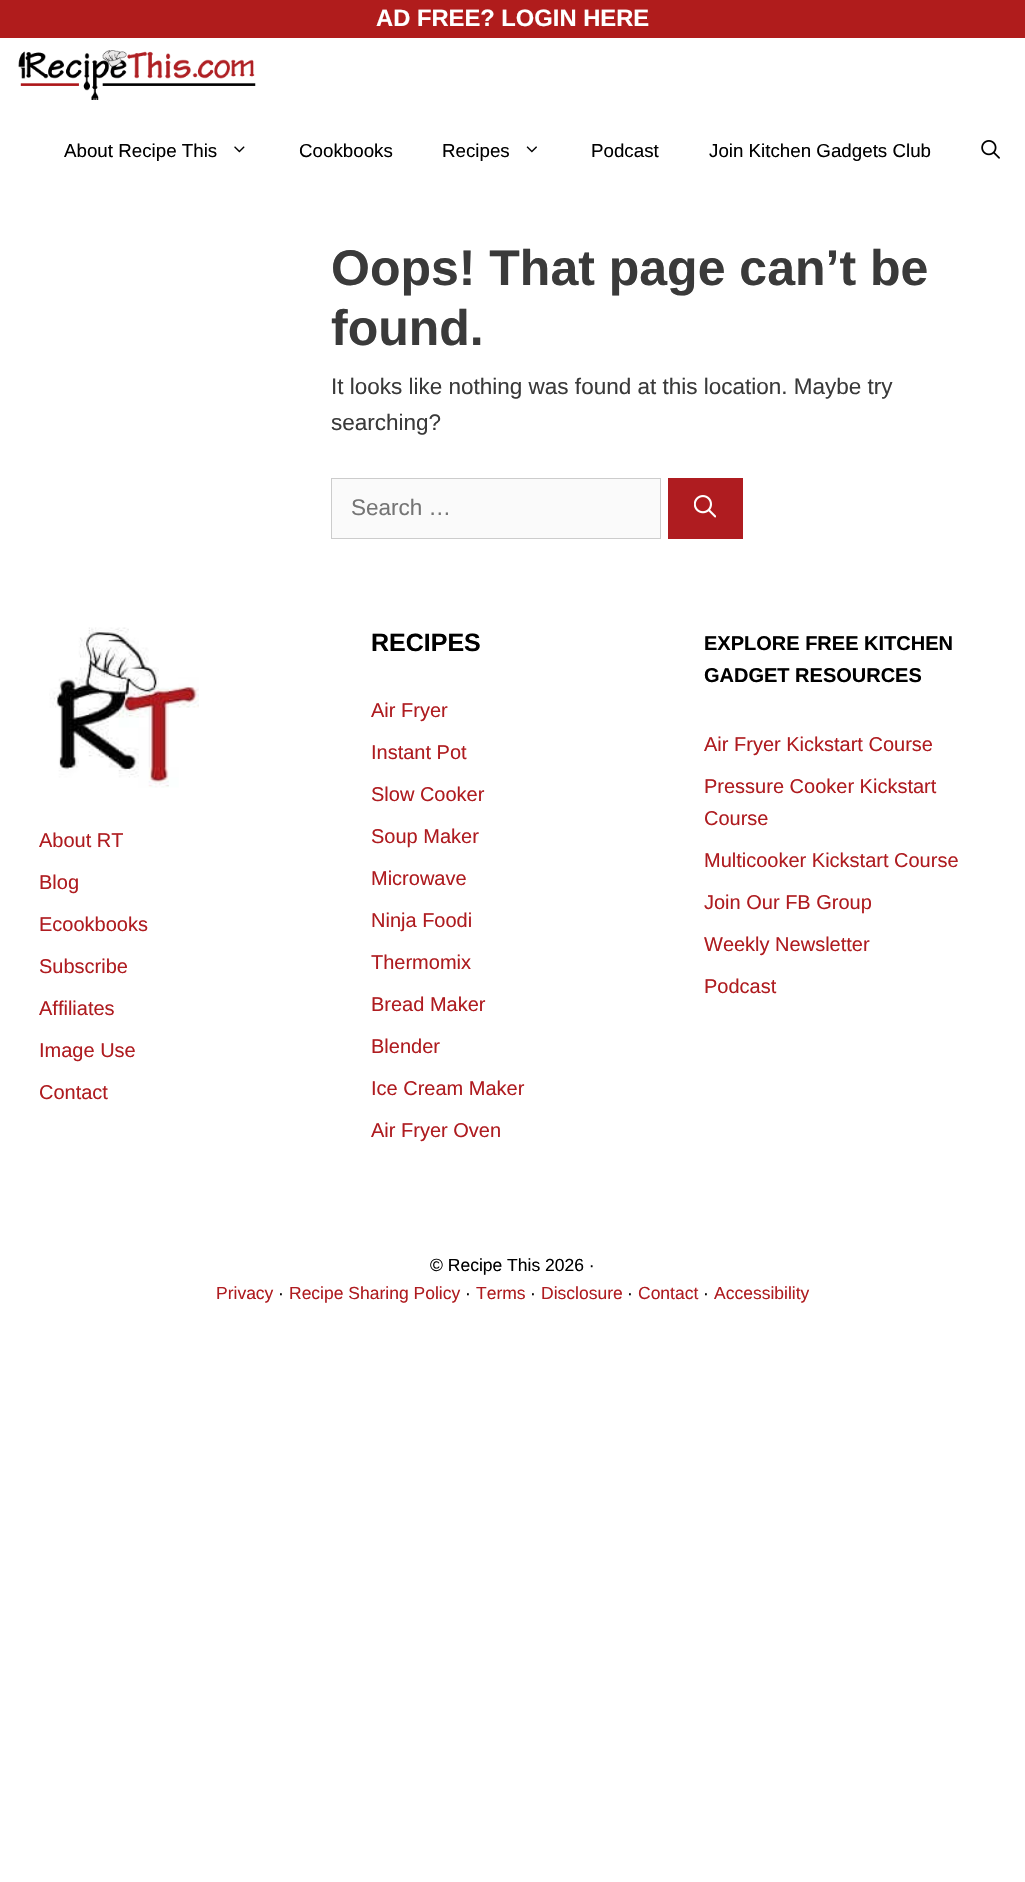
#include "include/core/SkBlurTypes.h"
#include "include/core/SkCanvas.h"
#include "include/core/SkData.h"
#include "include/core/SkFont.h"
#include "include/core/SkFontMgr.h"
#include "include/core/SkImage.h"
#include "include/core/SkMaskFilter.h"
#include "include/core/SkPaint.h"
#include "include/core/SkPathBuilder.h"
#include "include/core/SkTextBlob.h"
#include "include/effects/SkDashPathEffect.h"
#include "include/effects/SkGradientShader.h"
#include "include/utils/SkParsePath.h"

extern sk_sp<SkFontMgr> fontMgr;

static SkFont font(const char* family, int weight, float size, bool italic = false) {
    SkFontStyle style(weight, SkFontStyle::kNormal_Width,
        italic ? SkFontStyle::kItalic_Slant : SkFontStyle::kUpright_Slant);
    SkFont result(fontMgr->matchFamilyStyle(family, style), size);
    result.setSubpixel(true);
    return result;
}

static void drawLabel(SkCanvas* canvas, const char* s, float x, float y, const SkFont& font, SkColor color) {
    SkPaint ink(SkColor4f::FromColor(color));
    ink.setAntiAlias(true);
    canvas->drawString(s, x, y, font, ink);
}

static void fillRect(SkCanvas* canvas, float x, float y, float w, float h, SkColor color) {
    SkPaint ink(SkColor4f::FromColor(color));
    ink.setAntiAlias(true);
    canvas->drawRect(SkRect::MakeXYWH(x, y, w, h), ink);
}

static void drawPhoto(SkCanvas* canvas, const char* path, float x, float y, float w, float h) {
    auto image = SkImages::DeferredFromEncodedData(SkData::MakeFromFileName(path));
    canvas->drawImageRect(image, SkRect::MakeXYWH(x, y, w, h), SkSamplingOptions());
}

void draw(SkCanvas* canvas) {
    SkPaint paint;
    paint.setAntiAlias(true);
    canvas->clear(0xFFFFFFFF);
    fillRect(canvas, 0, 0, 1025, 38, 0xFFB01C1C);
    SkFont font1 = font("Liberation Sans", 700, 23.75f);
    drawLabel(canvas, "AD FREE? LOGIN HERE", 376, 26, font1, 0xFFFFFFFF);
    drawPhoto(canvas, "assets/img1.png", 18, 50, 238, 50);
    SkFont font2 = font("Liberation Sans", 400, 18.75f);
    drawLabel(canvas, "About Recipe This", 64, 157, font2, 0xFF000000);
    drawPhoto(canvas, "assets/img2.png", 234, 146, 11, 7);
    drawLabel(canvas, "Cookbooks", 299, 157, font2, 0xFF000000);
    drawLabel(canvas, "Recipes", 442, 157, font2, 0xFF000000);
    drawPhoto(canvas, "assets/img3.png", 526, 146, 11, 7);
    drawLabel(canvas, "Podcast", 591, 157, font2, 0xFF000000);
    drawLabel(canvas, "Join Kitchen Gadgets Club", 709, 157, font2, 0xFF000000);
    drawPhoto(canvas, "assets/img4.png", 981, 140, 19, 19);
    SkFont font3 = font("Liberation Sans", 700, 50);
    drawLabel(canvas, "Oops! That page can’t be", 331, 285, font3, 0xFF3A3A3A);
    drawLabel(canvas, "found.", 331, 345, font3, 0xFF3A3A3A);
    SkFont font4 = font("Liberation Sans", 400, 22.5f);
    drawLabel(canvas, "It looks like nothing was found at this location. Maybe try", 331, 394, font4, 0xFF3A3A3A);
    drawLabel(canvas, "searching?", 331, 430, font4, 0xFF3A3A3A);
    paint.setColor(0xFFFAFAFA);
    canvas->drawRect(SkRect::MakeXYWH(331.5f, 478.5f, 329, 60), paint);
    paint.setStroke(true);
    paint.setStrokeWidth(1);
    paint.setColor(0xFFCCCCCC);
    canvas->drawRect(SkRect::MakeXYWH(331.5f, 478.5f, 329, 60), paint);
    drawLabel(canvas, "Search …", 351, 515, font4, 0xFF757575);
    fillRect(canvas, 668, 478, 75, 61, 0xFFAF1C20);
    drawPhoto(canvas, "assets/img5.png", 694, 495, 22, 23);
    drawPhoto(canvas, "assets/img6.png", 49, 627, 150, 161);
    SkFont font5 = font("Liberation Sans", 400, 20);
    drawLabel(canvas, "About RT", 39, 847, font5, 0xFFAF1C20);
    drawLabel(canvas, "Blog", 39, 889, font5, 0xFFAF1C20);
    drawLabel(canvas, "Ecookbooks", 39, 931, font5, 0xFFAF1C20);
    drawLabel(canvas, "Subscribe", 39, 973, font5, 0xFFAF1C20);
    drawLabel(canvas, "Affiliates", 39, 1015, font5, 0xFFAF1C20);
    drawLabel(canvas, "Image Use", 39, 1057, font5, 0xFFAF1C20);
    drawLabel(canvas, "Contact", 39, 1099, font5, 0xFFAF1C20);
    SkFont font6 = font("Liberation Sans", 700, 25);
    drawLabel(canvas, "RECIPES", 371, 651, font6, 0xFF000000);
    drawLabel(canvas, "Air Fryer", 371, 717, font5, 0xFFAF1C20);
    drawLabel(canvas, "Instant Pot", 371, 759, font5, 0xFFAF1C20);
    drawLabel(canvas, "Slow Cooker", 371, 801, font5, 0xFFAF1C20);
    drawLabel(canvas, "Soup Maker", 371, 843, font5, 0xFFAF1C20);
    drawLabel(canvas, "Microwave", 371, 885, font5, 0xFFAF1C20);
    drawLabel(canvas, "Ninja Foodi", 371, 927, font5, 0xFFAF1C20);
    drawLabel(canvas, "Thermomix", 371, 969, font5, 0xFFAF1C20);
    drawLabel(canvas, "Bread Maker", 371, 1011, font5, 0xFFAF1C20);
    drawLabel(canvas, "Blender", 371, 1053, font5, 0xFFAF1C20);
    drawLabel(canvas, "Ice Cream Maker", 371, 1095, font5, 0xFFAF1C20);
    drawLabel(canvas, "Air Fryer Oven", 371, 1137, font5, 0xFFAF1C20);
    SkFont font7 = font("Liberation Sans", 700, 20);
    drawLabel(canvas, "EXPLORE FREE KITCHEN", 704, 650, font7, 0xFF000000);
    drawLabel(canvas, "GADGET RESOURCES", 704, 682, font7, 0xFF000000);
    drawLabel(canvas, "Air Fryer Kickstart Course", 704, 751, font5, 0xFFAF1C20);
    drawLabel(canvas, "Pressure Cooker Kickstart", 704, 793, font5, 0xFFAF1C20);
    drawLabel(canvas, "Course", 704, 825, font5, 0xFFAF1C20);
    drawLabel(canvas, "Multicooker Kickstart Course", 704, 867, font5, 0xFFAF1C20);
    drawLabel(canvas, "Join Our FB Group", 704, 909, font5, 0xFFAF1C20);
    drawLabel(canvas, "Weekly Newsletter", 704, 951, font5, 0xFFAF1C20);
    drawLabel(canvas, "Podcast", 704, 993, font5, 0xFFAF1C20);
    SkFont font8 = font("Liberation Sans", 400, 17.5f);
    drawLabel(canvas, "© Recipe This 2026 ·", 430, 1271, font8, 0xFF000000);
    drawLabel(canvas, "Privacy", 216, 1299, font8, 0xFFAF1C20);
    drawLabel(canvas, "·", 278, 1299, font8, 0xFF000000);
    drawLabel(canvas, "Recipe Sharing Policy", 289, 1299, font8, 0xFFAF1C20);
    drawLabel(canvas, "·", 465, 1299, font8, 0xFF000000);
    drawLabel(canvas, "Terms", 476, 1299, font8, 0xFFAF1C20);
    drawLabel(canvas, "·", 530, 1299, font8, 0xFF000000);
    drawLabel(canvas, "Disclosure", 541, 1299, font8, 0xFFAF1C20);
    drawLabel(canvas, "·", 627, 1299, font8, 0xFF000000);
    drawLabel(canvas, "Contact", 638, 1299, font8, 0xFFAF1C20);
    drawLabel(canvas, "·", 703, 1299, font8, 0xFF000000);
    drawLabel(canvas, "Accessibility", 714, 1299, font8, 0xFFAF1C20);
}
